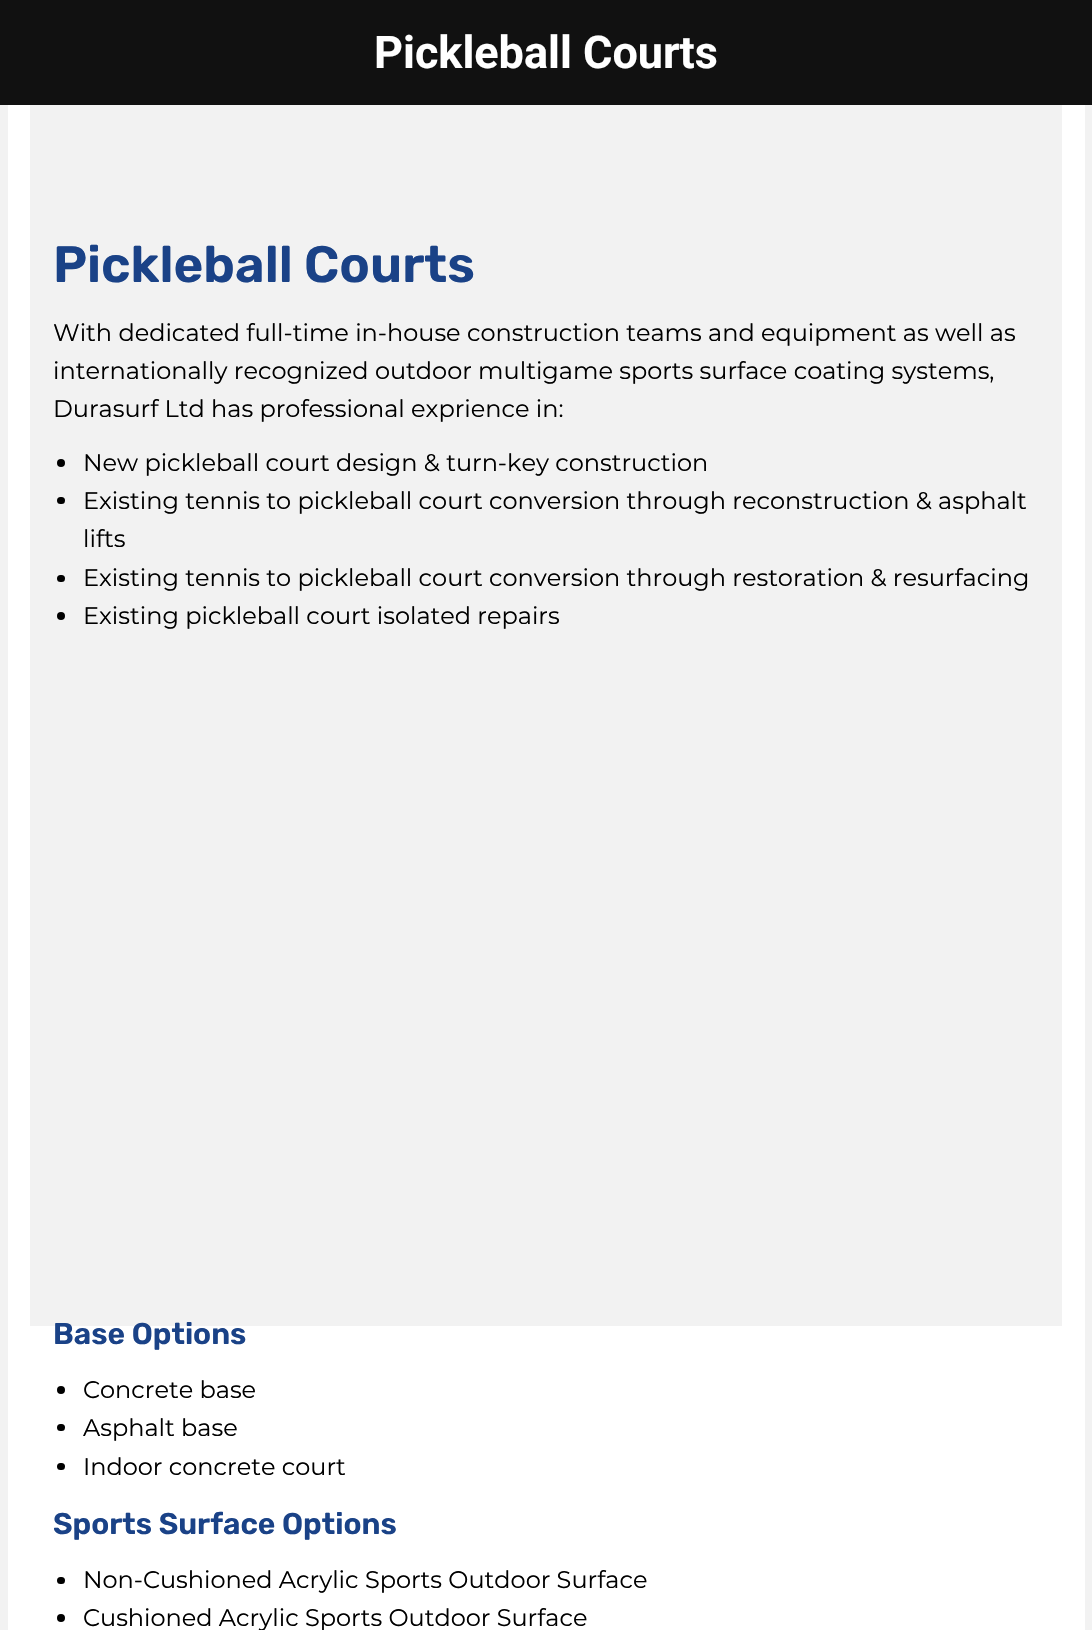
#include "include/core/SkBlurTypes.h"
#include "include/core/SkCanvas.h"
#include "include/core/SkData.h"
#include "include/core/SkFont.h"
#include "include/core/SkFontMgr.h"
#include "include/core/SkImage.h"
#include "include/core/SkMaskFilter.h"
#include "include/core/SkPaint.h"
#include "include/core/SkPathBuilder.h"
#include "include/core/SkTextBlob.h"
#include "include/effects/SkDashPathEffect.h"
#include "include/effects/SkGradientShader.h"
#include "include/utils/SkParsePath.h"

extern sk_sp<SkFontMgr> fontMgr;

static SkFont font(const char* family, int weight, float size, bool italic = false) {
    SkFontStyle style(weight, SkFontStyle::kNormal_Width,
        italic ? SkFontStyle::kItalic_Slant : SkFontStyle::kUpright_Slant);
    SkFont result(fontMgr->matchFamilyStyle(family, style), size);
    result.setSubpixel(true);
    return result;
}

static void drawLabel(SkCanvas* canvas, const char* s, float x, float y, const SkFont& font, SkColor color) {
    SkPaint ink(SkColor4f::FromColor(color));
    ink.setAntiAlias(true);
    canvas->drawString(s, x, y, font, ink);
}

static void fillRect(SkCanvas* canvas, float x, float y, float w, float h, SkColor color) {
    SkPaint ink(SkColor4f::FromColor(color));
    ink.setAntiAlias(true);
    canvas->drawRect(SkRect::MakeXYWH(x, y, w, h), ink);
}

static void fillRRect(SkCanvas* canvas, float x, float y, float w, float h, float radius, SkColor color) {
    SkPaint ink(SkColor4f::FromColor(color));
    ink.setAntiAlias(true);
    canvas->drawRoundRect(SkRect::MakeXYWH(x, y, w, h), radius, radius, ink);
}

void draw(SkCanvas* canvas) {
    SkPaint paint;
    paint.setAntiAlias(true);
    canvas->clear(0xFFF2F2F2);
    fillRect(canvas, 0, 0, 1092, 105, 0xFF111111);
    SkFont font1 = font("Roboto", 700, 45);
    drawLabel(canvas, "Pickleball Courts", 374, 68, font1, 0xFFFFFFFF);
    fillRect(canvas, 8, 105, 1077, 1525, 0xFFFFFFFF);
    fillRect(canvas, 30, 105, 1032, 1221, 0xFFF2F2F2);
    SkFont font2 = font("Rubik", 600, 51);
    drawLabel(canvas, "Pickleball Courts", 53, 282, font2, 0xFF1A4287);
    SkFont font3 = font("Montserrat", 400, 24);
    drawLabel(canvas, "With dedicated full-time in-house construction teams and equipment as well as", 53, 341, font3, 0xFF000000);
    drawLabel(canvas, "internationally recognized outdoor multigame sports surface coating systems,", 53, 379, font3, 0xFF000000);
    drawLabel(canvas, "Durasurf Ltd has professional exprience in:", 53, 417, font3, 0xFF000000);
    paint.setColor(0xFF000000);
    canvas->drawCircle(61, 463, 4, paint);
    drawLabel(canvas, "New pickleball court design & turn-key construction", 83, 471, font3, 0xFF000000);
    fillRRect(canvas, 57, 497, 8, 7, 3.5f, 0xFF000000);
    drawLabel(canvas, "Existing tennis to pickleball court conversion through reconstruction & asphalt", 83, 509, font3, 0xFF000000);
    drawLabel(canvas, "lifts", 83, 547, font3, 0xFF000000);
    fillRRect(canvas, 57, 575, 8, 7, 3.5f, 0xFF000000);
    drawLabel(canvas, "Existing tennis to pickleball court conversion through restoration & resurfacing", 83, 586, font3, 0xFF000000);
    canvas->drawCircle(61, 616, 4, paint);
    drawLabel(canvas, "Existing pickleball court isolated repairs", 83, 624, font3, 0xFF000000);
    SkFont font4 = font("Rubik", 600, 30);
    drawLabel(canvas, "Base Options", 53, 1344, font4, 0xFF1A4287);
    canvas->drawCircle(61, 1390, 4, paint);
    drawLabel(canvas, "Concrete base", 83, 1398, font3, 0xFF000000);
    fillRRect(canvas, 57, 1424, 8, 7, 3.5f, 0xFF000000);
    drawLabel(canvas, "Asphalt base", 83, 1436, font3, 0xFF000000);
    fillRRect(canvas, 57, 1463, 8, 7, 3.5f, 0xFF000000);
    drawLabel(canvas, "Indoor concrete court", 83, 1475, font3, 0xFF000000);
    drawLabel(canvas, "Sports Surface Options", 53, 1534, font4, 0xFF1A4287);
    fillRRect(canvas, 57, 1577, 8, 7, 3.5f, 0xFF000000);
    drawLabel(canvas, "Non-Cushioned Acrylic Sports Outdoor Surface", 83, 1588, font3, 0xFF000000);
    canvas->drawCircle(61, 1618, 4, paint);
    drawLabel(canvas, "Cushioned Acrylic Sports Outdoor Surface", 83, 1626, font3, 0xFF000000);
}
